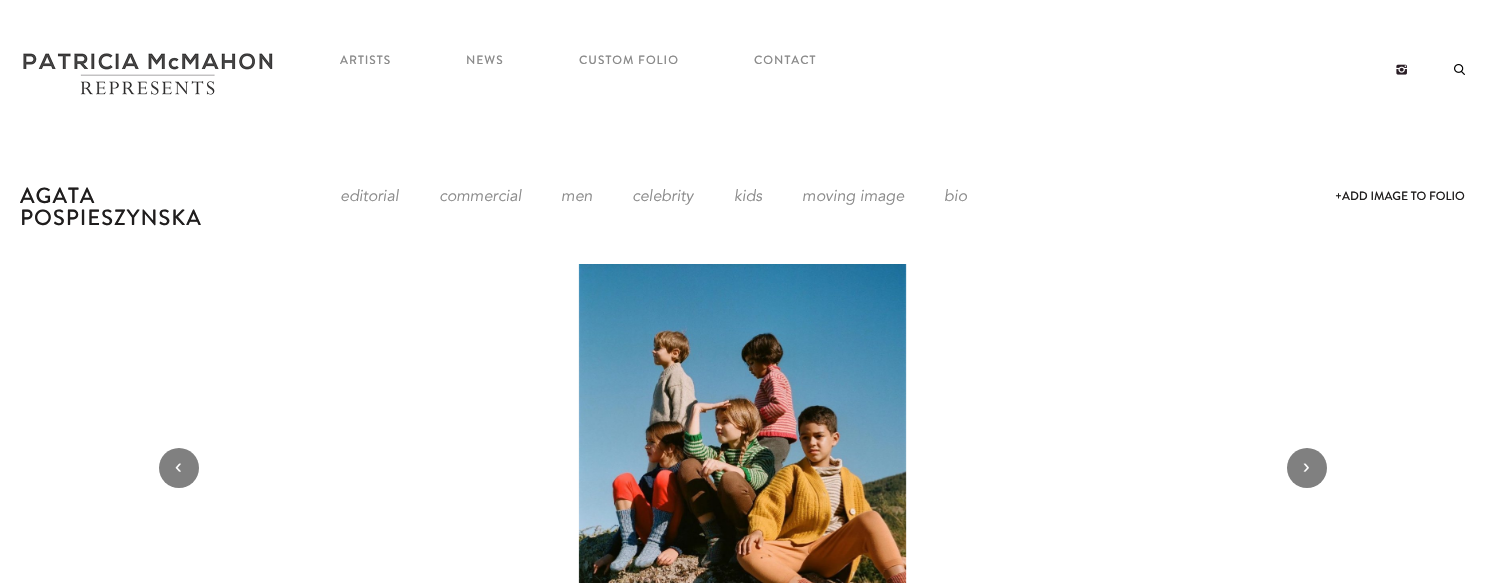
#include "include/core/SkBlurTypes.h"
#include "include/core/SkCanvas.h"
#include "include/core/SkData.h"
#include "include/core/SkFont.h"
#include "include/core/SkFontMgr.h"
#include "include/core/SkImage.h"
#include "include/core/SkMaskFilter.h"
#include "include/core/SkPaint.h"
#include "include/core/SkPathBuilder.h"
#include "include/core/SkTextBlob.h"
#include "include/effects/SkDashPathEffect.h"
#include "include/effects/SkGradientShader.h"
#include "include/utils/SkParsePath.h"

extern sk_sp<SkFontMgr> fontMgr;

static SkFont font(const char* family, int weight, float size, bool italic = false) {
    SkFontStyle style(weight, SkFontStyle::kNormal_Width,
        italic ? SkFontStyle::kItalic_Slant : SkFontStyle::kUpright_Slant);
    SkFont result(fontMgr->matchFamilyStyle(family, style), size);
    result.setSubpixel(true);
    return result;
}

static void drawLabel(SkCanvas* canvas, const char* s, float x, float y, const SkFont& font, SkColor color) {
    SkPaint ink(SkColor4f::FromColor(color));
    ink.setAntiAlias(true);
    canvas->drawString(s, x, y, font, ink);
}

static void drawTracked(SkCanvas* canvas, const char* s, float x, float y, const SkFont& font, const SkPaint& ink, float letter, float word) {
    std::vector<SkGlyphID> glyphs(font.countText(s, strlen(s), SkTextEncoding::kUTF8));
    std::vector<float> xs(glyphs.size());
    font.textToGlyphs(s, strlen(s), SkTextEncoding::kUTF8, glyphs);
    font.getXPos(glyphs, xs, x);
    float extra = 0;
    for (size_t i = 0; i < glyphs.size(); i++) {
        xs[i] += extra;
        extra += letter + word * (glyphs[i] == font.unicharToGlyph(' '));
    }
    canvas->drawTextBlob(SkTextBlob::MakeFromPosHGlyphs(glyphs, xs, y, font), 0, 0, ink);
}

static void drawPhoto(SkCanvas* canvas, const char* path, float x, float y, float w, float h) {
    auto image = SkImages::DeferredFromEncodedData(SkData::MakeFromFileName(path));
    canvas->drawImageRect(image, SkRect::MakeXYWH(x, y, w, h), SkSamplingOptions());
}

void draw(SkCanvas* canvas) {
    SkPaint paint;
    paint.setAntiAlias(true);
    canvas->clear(0xFFFFFFFF);
    drawPhoto(canvas, "assets/img1.png", 23, 53, 250, 42);
    SkFont font1 = font("Brandon Grotesque", 500, 12);
    paint.setColor(0xFF8A8A8A);
    drawTracked(canvas, "ARTISTS", 340, 64, font1, paint, 1, 0);
    drawTracked(canvas, "NEWS", 466, 64, font1, paint, 1, 0);
    drawTracked(canvas, "CUSTOM FOLIO", 579, 64, font1, paint, 1, 0);
    drawTracked(canvas, "CONTACT", 754, 64, font1, paint, 1, 0);
    drawPhoto(canvas, "assets/img2.png", 1396, 64, 11, 11);
    drawPhoto(canvas, "assets/img3.png", 1454, 64, 11, 11);
    SkFont font2 = font("Brandon Grotesque", 500, 22);
    paint.setColor(0xFF1F1D1D);
    drawTracked(canvas, "AGATA", 20, 203, font2, paint, 1, 0);
    drawTracked(canvas, "POSPIESZYNSKA", 20, 225, font2, paint, 1, 0);
    SkFont font3 = font("Avenir", 400, 16, true);
    drawLabel(canvas, "editorial", 340, 201, font3, 0xFF8A8A8A);
    drawLabel(canvas, "commercial", 439, 201, font3, 0xFF8A8A8A);
    drawLabel(canvas, "men", 561, 201, font3, 0xFF8A8A8A);
    drawLabel(canvas, "celebrity", 632, 201, font3, 0xFF8A8A8A);
    drawLabel(canvas, "kids", 734, 201, font3, 0xFF8A8A8A);
    drawLabel(canvas, "moving image", 802, 201, font3, 0xFF8A8A8A);
    drawLabel(canvas, "bio", 944, 201, font3, 0xFF8A8A8A);
    drawLabel(canvas, "+ADD IMAGE TO FOLIO", 1335, 200, font1, 0xFF1F1D1D);
    paint.setColor(0xFF808080);
    canvas->drawCircle(179, 468, 20, paint);
    SkFont font4 = font("Liberation Sans", 400, 20);
    drawLabel(canvas, "‹", 175, 473, font4, 0xFFFFFFFF);
    drawPhoto(canvas, "assets/img4.png", 578, 264, 329, 319);
    canvas->drawCircle(1307, 468, 20, paint);
    drawLabel(canvas, "›", 1303, 473, font4, 0xFFFFFFFF);
}
